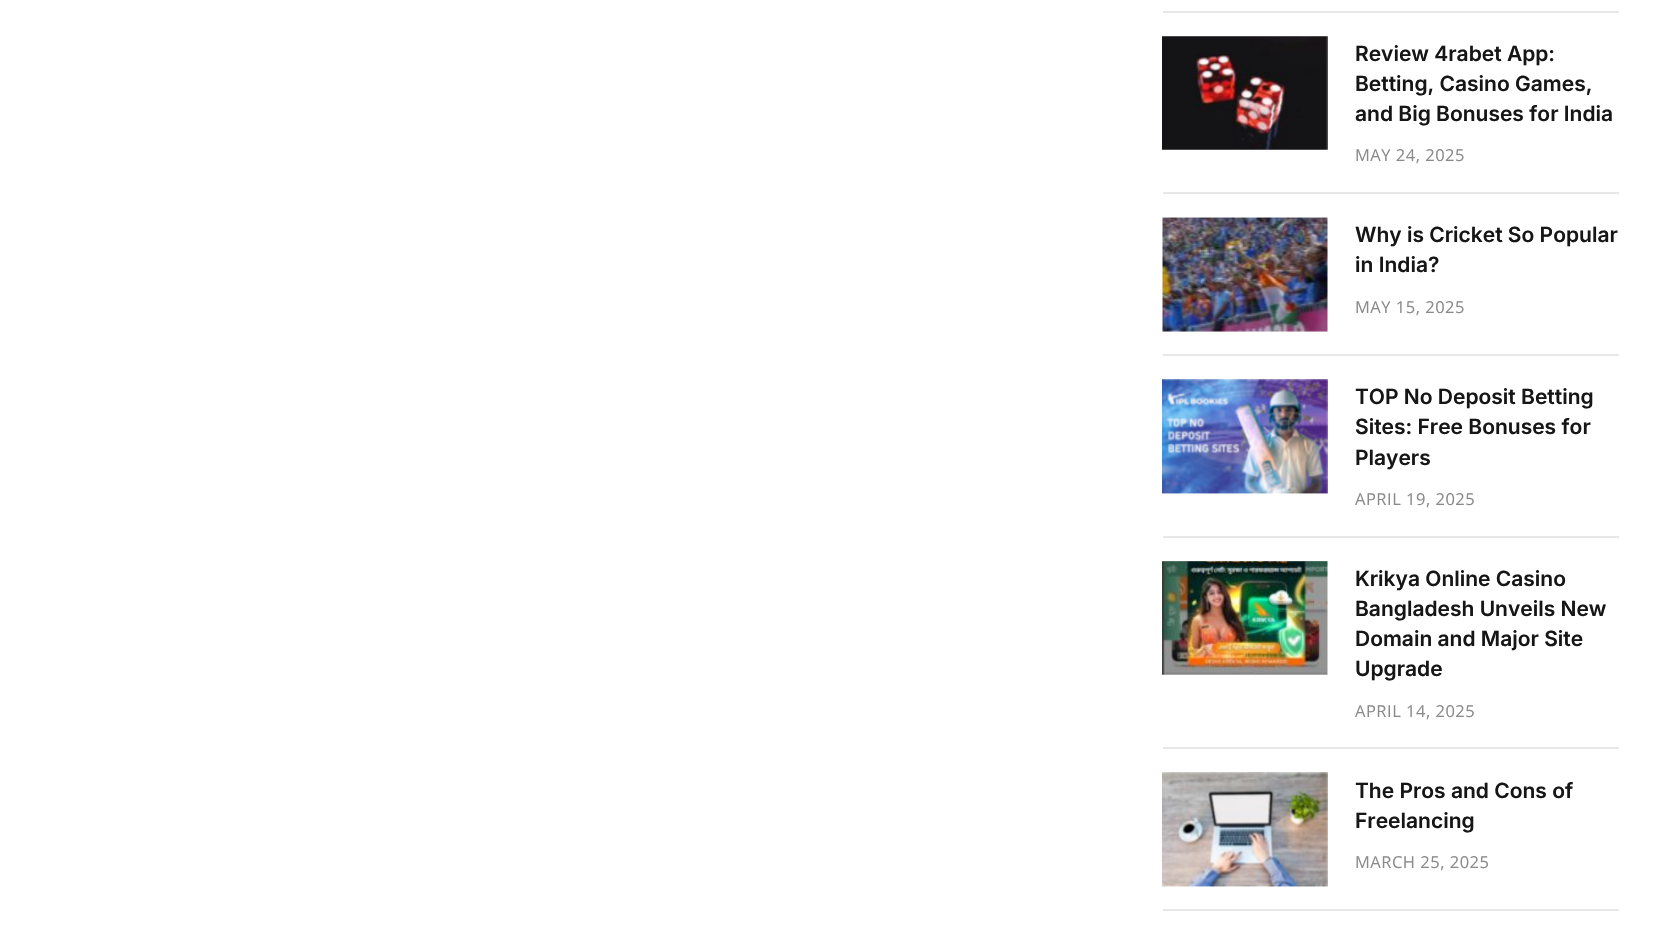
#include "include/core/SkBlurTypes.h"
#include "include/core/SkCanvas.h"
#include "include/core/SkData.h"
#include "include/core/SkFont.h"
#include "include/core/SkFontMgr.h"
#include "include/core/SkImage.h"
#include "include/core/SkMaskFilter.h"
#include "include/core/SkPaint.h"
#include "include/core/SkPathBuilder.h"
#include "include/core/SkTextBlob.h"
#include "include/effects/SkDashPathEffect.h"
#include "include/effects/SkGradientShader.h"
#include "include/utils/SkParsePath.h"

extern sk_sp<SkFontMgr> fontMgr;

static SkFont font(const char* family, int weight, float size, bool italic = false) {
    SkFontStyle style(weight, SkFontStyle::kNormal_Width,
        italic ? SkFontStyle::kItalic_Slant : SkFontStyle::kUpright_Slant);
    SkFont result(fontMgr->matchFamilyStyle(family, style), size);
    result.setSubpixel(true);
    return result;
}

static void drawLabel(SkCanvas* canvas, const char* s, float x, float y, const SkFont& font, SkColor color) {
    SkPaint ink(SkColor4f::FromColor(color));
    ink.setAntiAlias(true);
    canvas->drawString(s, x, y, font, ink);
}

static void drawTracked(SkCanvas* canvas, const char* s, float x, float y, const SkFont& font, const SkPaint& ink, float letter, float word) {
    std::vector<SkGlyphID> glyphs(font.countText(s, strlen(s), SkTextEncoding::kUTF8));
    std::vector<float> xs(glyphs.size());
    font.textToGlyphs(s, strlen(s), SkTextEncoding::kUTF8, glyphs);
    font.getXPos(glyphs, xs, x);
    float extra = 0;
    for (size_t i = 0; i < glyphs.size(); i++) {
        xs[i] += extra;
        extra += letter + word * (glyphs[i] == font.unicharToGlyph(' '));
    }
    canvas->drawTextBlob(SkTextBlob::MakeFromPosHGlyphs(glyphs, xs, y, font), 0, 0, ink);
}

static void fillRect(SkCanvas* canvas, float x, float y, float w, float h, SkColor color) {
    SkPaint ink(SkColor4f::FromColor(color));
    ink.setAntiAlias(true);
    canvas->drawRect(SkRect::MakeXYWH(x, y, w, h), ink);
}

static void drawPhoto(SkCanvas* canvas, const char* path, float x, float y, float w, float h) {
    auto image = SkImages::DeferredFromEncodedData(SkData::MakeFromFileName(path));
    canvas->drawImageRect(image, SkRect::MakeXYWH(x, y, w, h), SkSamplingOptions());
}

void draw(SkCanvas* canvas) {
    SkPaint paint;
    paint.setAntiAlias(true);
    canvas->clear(0xFFFFFFFF);
    fillRect(canvas, 1163, 11, 456, 2, 0xFFE8E8E8);
    drawPhoto(canvas, "assets/img1.png", 1162, 36, 166, 114);
    SkFont font1 = font("Inter", 600, 21);
    drawLabel(canvas, "Review 4rabet App:", 1355, 61, font1, 0xFF161616);
    drawLabel(canvas, "Betting, Casino Games,", 1355, 91, font1, 0xFF161616);
    drawLabel(canvas, "and Big Bonuses for India", 1355, 121, font1, 0xFF161616);
    SkFont font2 = font("Open Sans", 400, 16.5f);
    paint.setColor(0xFF8A8A8A);
    drawTracked(canvas, "MAY 24, 2025", 1355, 161, font2, paint, 0.5f, 0);
    fillRect(canvas, 1163, 192, 456, 2, 0xFFE8E8E8);
    drawPhoto(canvas, "assets/img2.png", 1162, 217, 166, 115);
    drawLabel(canvas, "Why is Cricket So Popular", 1355, 242, font1, 0xFF161616);
    drawLabel(canvas, "in India?", 1355, 272, font1, 0xFF161616);
    drawTracked(canvas, "MAY 15, 2025", 1355, 313, font2, paint, 0.5f, 0);
    fillRect(canvas, 1163, 354, 456, 2, 0xFFE8E8E8);
    drawPhoto(canvas, "assets/img3.png", 1162, 379, 166, 115);
    drawLabel(canvas, "TOP No Deposit Betting", 1355, 404, font1, 0xFF161616);
    drawLabel(canvas, "Sites: Free Bonuses for", 1355, 434, font1, 0xFF161616);
    drawLabel(canvas, "Players", 1355, 465, font1, 0xFF161616);
    drawTracked(canvas, "APRIL 19, 2025", 1355, 505, font2, paint, 0.5f, 0);
    fillRect(canvas, 1163, 536, 456, 2, 0xFFE8E8E8);
    drawPhoto(canvas, "assets/img4.png", 1162, 561, 166, 114);
    drawLabel(canvas, "Krikya Online Casino", 1355, 586, font1, 0xFF161616);
    drawLabel(canvas, "Bangladesh Unveils New", 1355, 616, font1, 0xFF161616);
    drawLabel(canvas, "Domain and Major Site", 1355, 646, font1, 0xFF161616);
    drawLabel(canvas, "Upgrade", 1355, 676, font1, 0xFF161616);
    drawTracked(canvas, "APRIL 14, 2025", 1355, 717, font2, paint, 0.5f, 0);
    fillRect(canvas, 1163, 747, 456, 2, 0xFFE8E8E8);
    drawPhoto(canvas, "assets/img5.png", 1162, 772, 166, 115);
    drawLabel(canvas, "The Pros and Cons of", 1355, 798, font1, 0xFF161616);
    drawLabel(canvas, "Freelancing", 1355, 828, font1, 0xFF161616);
    drawTracked(canvas, "MARCH 25, 2025", 1355, 868, font2, paint, 0.5f, 0);
    fillRect(canvas, 1163, 909, 456, 2, 0xFFE8E8E8);
}
